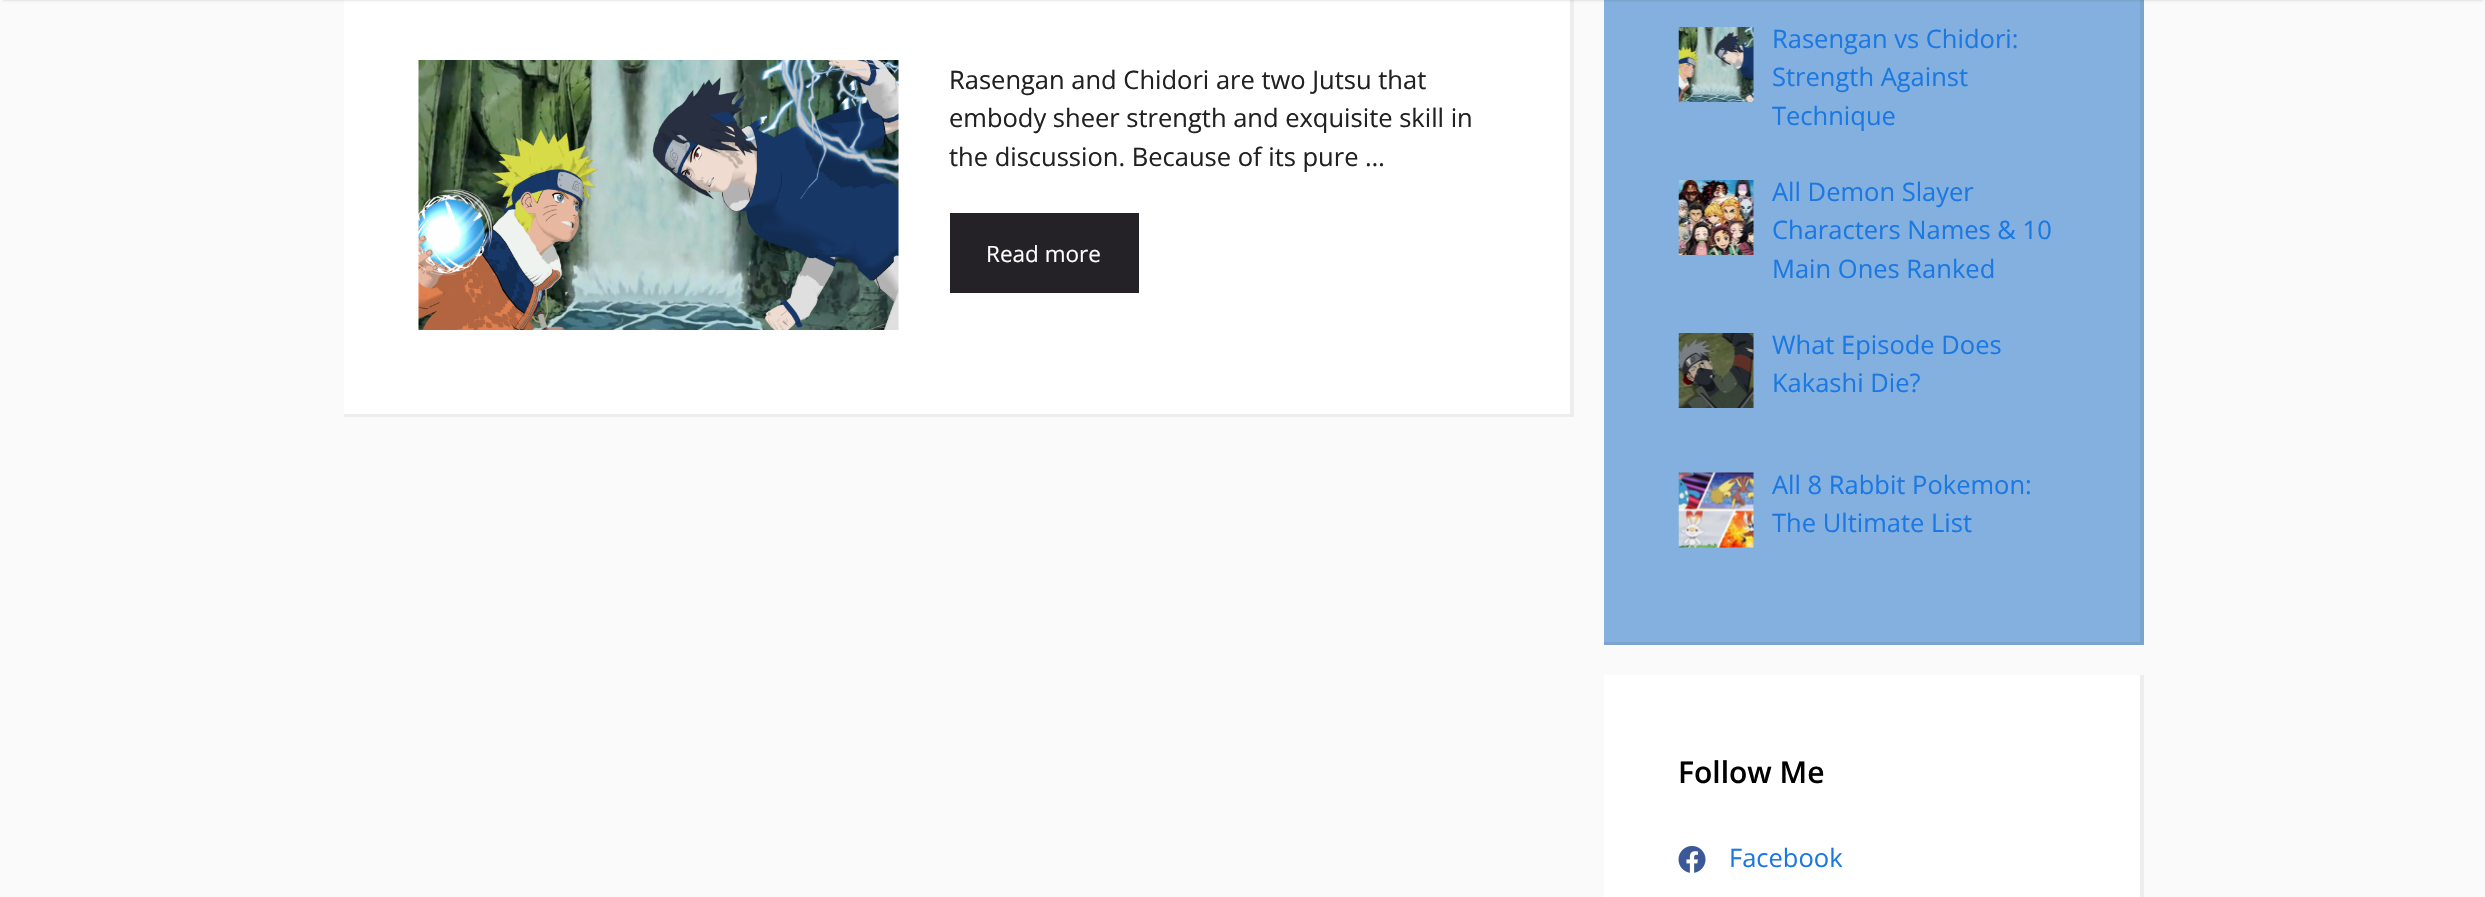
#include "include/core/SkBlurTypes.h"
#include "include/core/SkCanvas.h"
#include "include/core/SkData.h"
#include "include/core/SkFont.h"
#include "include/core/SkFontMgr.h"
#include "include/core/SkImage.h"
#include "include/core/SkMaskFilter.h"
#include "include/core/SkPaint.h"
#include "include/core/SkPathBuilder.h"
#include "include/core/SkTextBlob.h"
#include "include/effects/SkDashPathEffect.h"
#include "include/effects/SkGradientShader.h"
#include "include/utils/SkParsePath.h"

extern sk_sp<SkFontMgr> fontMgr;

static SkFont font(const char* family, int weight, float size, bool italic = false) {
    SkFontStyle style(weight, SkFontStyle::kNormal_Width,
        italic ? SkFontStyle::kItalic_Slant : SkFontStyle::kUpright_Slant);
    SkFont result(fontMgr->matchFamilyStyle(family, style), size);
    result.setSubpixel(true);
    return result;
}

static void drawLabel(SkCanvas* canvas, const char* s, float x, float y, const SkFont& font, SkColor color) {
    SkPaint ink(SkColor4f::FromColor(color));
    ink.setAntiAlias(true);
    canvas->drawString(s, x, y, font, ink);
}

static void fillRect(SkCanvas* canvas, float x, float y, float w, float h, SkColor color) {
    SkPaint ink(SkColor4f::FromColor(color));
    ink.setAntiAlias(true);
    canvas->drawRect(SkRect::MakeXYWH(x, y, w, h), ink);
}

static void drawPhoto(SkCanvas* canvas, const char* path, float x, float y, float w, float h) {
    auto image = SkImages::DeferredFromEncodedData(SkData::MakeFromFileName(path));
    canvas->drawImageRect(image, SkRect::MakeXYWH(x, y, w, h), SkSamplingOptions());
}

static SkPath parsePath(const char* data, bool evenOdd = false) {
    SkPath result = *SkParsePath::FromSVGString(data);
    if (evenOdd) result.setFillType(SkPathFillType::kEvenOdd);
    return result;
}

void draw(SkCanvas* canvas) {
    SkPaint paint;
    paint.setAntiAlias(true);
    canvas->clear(0xFFFAFAFA);
    fillRect(canvas, 344, 0, 1230, 417, 0xFFFFFFFF);
    paint.setColor(0xFFEDEDED);
    canvas->drawPath(parsePath("M1574-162V417L1570 414V-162Z"), paint);
    fillRect(canvas, 1604, 0, 540, 645, 0xFF83B0DE);
    paint.setColor(0xFF7AA4CE);
    canvas->drawPath(parsePath("M2144-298V645L2140 642V-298Z"), paint);
    paint.setColor(0x33000000);
    paint.setMaskFilter(SkMaskFilter::MakeBlur(kNormal_SkBlurStyle, 1.5f));
    canvas->drawRect(SkRect::MakeXYWH(3, -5, 2480, 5), paint);
    paint.setMaskFilter(nullptr);
    paint.setColor(0x12000000);
    canvas->drawPath(parsePath("M1574 417H344V414H1570Z"), paint);
    drawPhoto(canvas, "assets/img1.png", 418, 60, 481, 270);
    SkFont font1 = font("Open Sans", 400, 25.5f);
    drawLabel(canvas, "Rasengan and Chidori are two Jutsu that", 949, 89, font1, 0xFF212121);
    drawLabel(canvas, "embody sheer strength and exquisite skill in", 949, 127, font1, 0xFF212121);
    drawLabel(canvas, "the discussion. Because of its pure …", 949, 166, font1, 0xFF212121);
    fillRect(canvas, 950, 213, 189, 80, 0xFF242226);
    SkFont font2 = font("Open Sans", 400, 22.5f);
    drawLabel(canvas, "Read more", 986, 262, font2, 0xFFFFFFFF);
    canvas->drawPath(parsePath("M2144 645H1604V642H2140Z"), paint);
    drawPhoto(canvas, "assets/img2.png", 1678, 27, 76, 75);
    drawLabel(canvas, "Rasengan vs Chidori:", 1772, 48, font1, 0xFF1B78E2);
    drawLabel(canvas, "Strength Against", 1772, 86, font1, 0xFF1B78E2);
    drawLabel(canvas, "Technique", 1772, 125, font1, 0xFF1B78E2);
    drawPhoto(canvas, "assets/img3.png", 1678, 180, 76, 75);
    drawLabel(canvas, "All Demon Slayer", 1772, 201, font1, 0xFF1B78E2);
    drawLabel(canvas, "Characters Names & 10", 1772, 239, font1, 0xFF1B78E2);
    drawLabel(canvas, "Main Ones Ranked", 1772, 278, font1, 0xFF1B78E2);
    drawPhoto(canvas, "assets/img4.png", 1678, 333, 76, 75);
    drawLabel(canvas, "What Episode Does", 1772, 354, font1, 0xFF1B78E2);
    drawLabel(canvas, "Kakashi Die?", 1772, 392, font1, 0xFF1B78E2);
    drawPhoto(canvas, "assets/img5.png", 1678, 472, 76, 76);
    drawLabel(canvas, "All 8 Rabbit Pokemon:", 1772, 494, font1, 0xFF1B78E2);
    drawLabel(canvas, "The Ultimate List", 1772, 532, font1, 0xFF1B78E2);
    fillRect(canvas, 1604, 675, 536, 222, 0xFFFFFFFF);
    paint.setColor(0xFFEDEDED);
    canvas->drawPath(parsePath("M2144 675V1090L2140 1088V675Z"), paint);
    SkFont font3 = font("Open Sans", 600, 30);
    drawLabel(canvas, "Follow Me", 1678, 783, font3, 0xFF000000);
    drawPhoto(canvas, "assets/img6.png", 1678, 846, 28, 27);
    drawLabel(canvas, "Facebook", 1729, 867, font1, 0xFF1B78E2);
}
